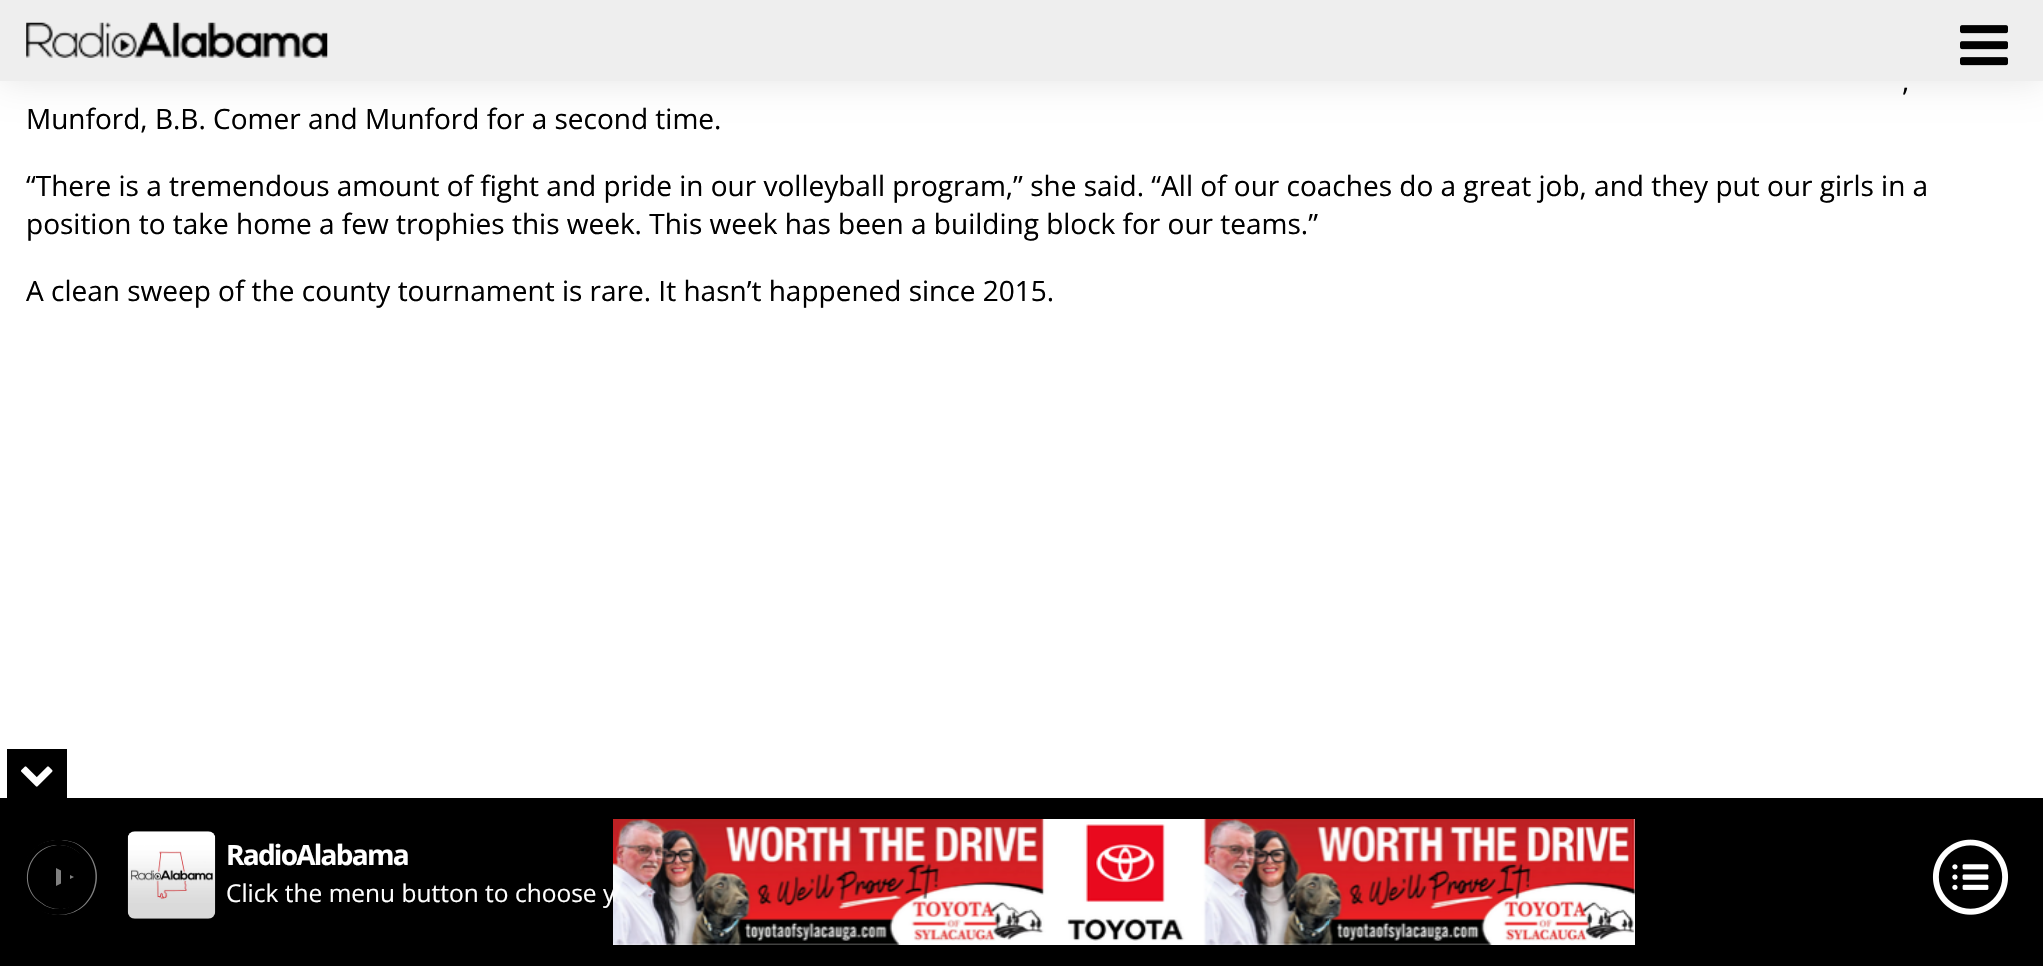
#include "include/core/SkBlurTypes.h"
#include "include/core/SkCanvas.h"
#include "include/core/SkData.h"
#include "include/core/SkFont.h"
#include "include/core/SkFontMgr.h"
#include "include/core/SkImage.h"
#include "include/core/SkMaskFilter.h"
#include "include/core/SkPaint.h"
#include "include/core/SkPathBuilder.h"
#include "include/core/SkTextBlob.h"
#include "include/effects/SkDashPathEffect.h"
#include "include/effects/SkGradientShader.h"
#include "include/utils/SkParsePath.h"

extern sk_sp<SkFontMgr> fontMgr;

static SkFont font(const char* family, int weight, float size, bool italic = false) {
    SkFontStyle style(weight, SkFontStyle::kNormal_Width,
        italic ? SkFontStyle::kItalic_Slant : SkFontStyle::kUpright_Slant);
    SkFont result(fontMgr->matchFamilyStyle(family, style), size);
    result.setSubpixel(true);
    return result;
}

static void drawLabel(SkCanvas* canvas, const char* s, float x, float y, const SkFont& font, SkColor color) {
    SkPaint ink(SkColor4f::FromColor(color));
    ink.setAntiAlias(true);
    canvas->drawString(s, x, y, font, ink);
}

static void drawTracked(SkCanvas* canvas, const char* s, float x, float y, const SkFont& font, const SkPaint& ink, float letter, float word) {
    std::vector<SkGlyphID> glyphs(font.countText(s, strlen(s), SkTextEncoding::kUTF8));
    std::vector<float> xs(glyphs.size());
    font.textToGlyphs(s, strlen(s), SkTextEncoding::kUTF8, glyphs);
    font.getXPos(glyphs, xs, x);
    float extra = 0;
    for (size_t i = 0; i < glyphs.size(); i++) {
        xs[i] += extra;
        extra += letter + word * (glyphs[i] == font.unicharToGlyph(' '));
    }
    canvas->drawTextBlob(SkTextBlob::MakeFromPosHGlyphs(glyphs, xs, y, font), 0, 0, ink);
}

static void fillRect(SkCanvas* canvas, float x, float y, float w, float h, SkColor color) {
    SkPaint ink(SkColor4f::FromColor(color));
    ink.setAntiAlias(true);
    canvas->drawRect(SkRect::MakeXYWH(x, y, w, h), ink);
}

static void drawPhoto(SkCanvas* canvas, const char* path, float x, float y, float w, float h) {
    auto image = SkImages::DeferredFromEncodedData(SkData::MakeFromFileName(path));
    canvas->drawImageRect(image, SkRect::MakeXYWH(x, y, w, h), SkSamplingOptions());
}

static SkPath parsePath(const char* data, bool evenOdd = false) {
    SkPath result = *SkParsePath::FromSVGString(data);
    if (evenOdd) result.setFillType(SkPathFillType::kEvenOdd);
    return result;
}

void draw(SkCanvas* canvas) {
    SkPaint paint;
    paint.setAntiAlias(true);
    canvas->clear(0xFFFFFFFF);
    paint.setColor(0x1A000000);
    paint.setMaskFilter(SkMaskFilter::MakeBlur(kNormal_SkBlurStyle, 17.5f));
    canvas->drawRect(SkRect::MakeXYWH(0, 0, 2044, 81), paint);
    paint.setMaskFilter(nullptr);
    fillRect(canvas, 0, 0, 2043, 81, 0xFFEEEEEE);
    drawPhoto(canvas, "assets/img1.png", 26, 22, 302, 36);
    drawPhoto(canvas, "assets/img2.png", 1960, 25, 48, 41);
    SkFont font1 = font("Open Sans", 400, 28);
    drawLabel(canvas, ",", 1902, 91, font1, 0xFF000000);
    drawLabel(canvas, "Munford, B.B. Comer and Munford for a second time.", 26, 129, font1, 0xFF000000);
    drawLabel(canvas, "“There is a tremendous amount of fight and pride in our volleyball program,” she said. “All of our coaches do a great job, and they put our girls in a", 26, 196, font1, 0xFF000000);
    drawLabel(canvas, "position to take home a few trophies this week. This week has been a building block for our teams.”", 26, 234, font1, 0xFF000000);
    drawLabel(canvas, "A clean sweep of the county tournament is rare. It hasn’t happened since 2015.", 26, 301, font1, 0xFF000000);
    fillRect(canvas, 0, 798, 2043, 168, 0xFF000000);
    fillRect(canvas, 7, 749, 60, 49, 0xFF000000);
    drawPhoto(canvas, "assets/img3.png", 21, 766, 32, 21);
    paint.setColor(0xFF808080);
    canvas->drawPath(parsePath("M60 840C51 840 43 842 37 847C8 869 24 915 60 915C95 915 111 869 82 847C76 842 68 840 60 840ZM60 909C53 909 47 907 42 903C16 886 29 845 60 845C66 845 72 847 77 851C103 868 90 909 60 909ZM50 889L74 877L50 865Z"), paint);
    paint.setColor(0xFF000000);
    canvas->drawPath(parsePath("M58 840C50 840 42 842 36 847C7 869 23 915 58 915C94 915 109 869 81 847C75 842 67 840 58 840ZM58 909C52 909 46 907 41 903C15 886 28 845 58 845C89 845 102 886 76 903C71 907 65 909 58 909ZM61 889H70V865H61ZM47 865H56V889H47Z"), paint);
    drawPhoto(canvas, "assets/img4.png", 127, 831, 89, 88);
    SkFont font2 = font("Open Sans", 700, 28);
    paint.setColor(0xFFFFFFFF);
    drawTracked(canvas, "RadioAlabama", 226, 865, font2, paint, -1.75f, 0);
    SkFont font3 = font("Open Sans", 400, 24.5f);
    drawLabel(canvas, "Click the menu button to choose y", 226, 902, font3, 0xFFFFFFFF);
    drawPhoto(canvas, "assets/img5.png", 613, 819, 1022, 126);
    drawPhoto(canvas, "assets/img6.png", 1932, 839, 77, 76);
}
